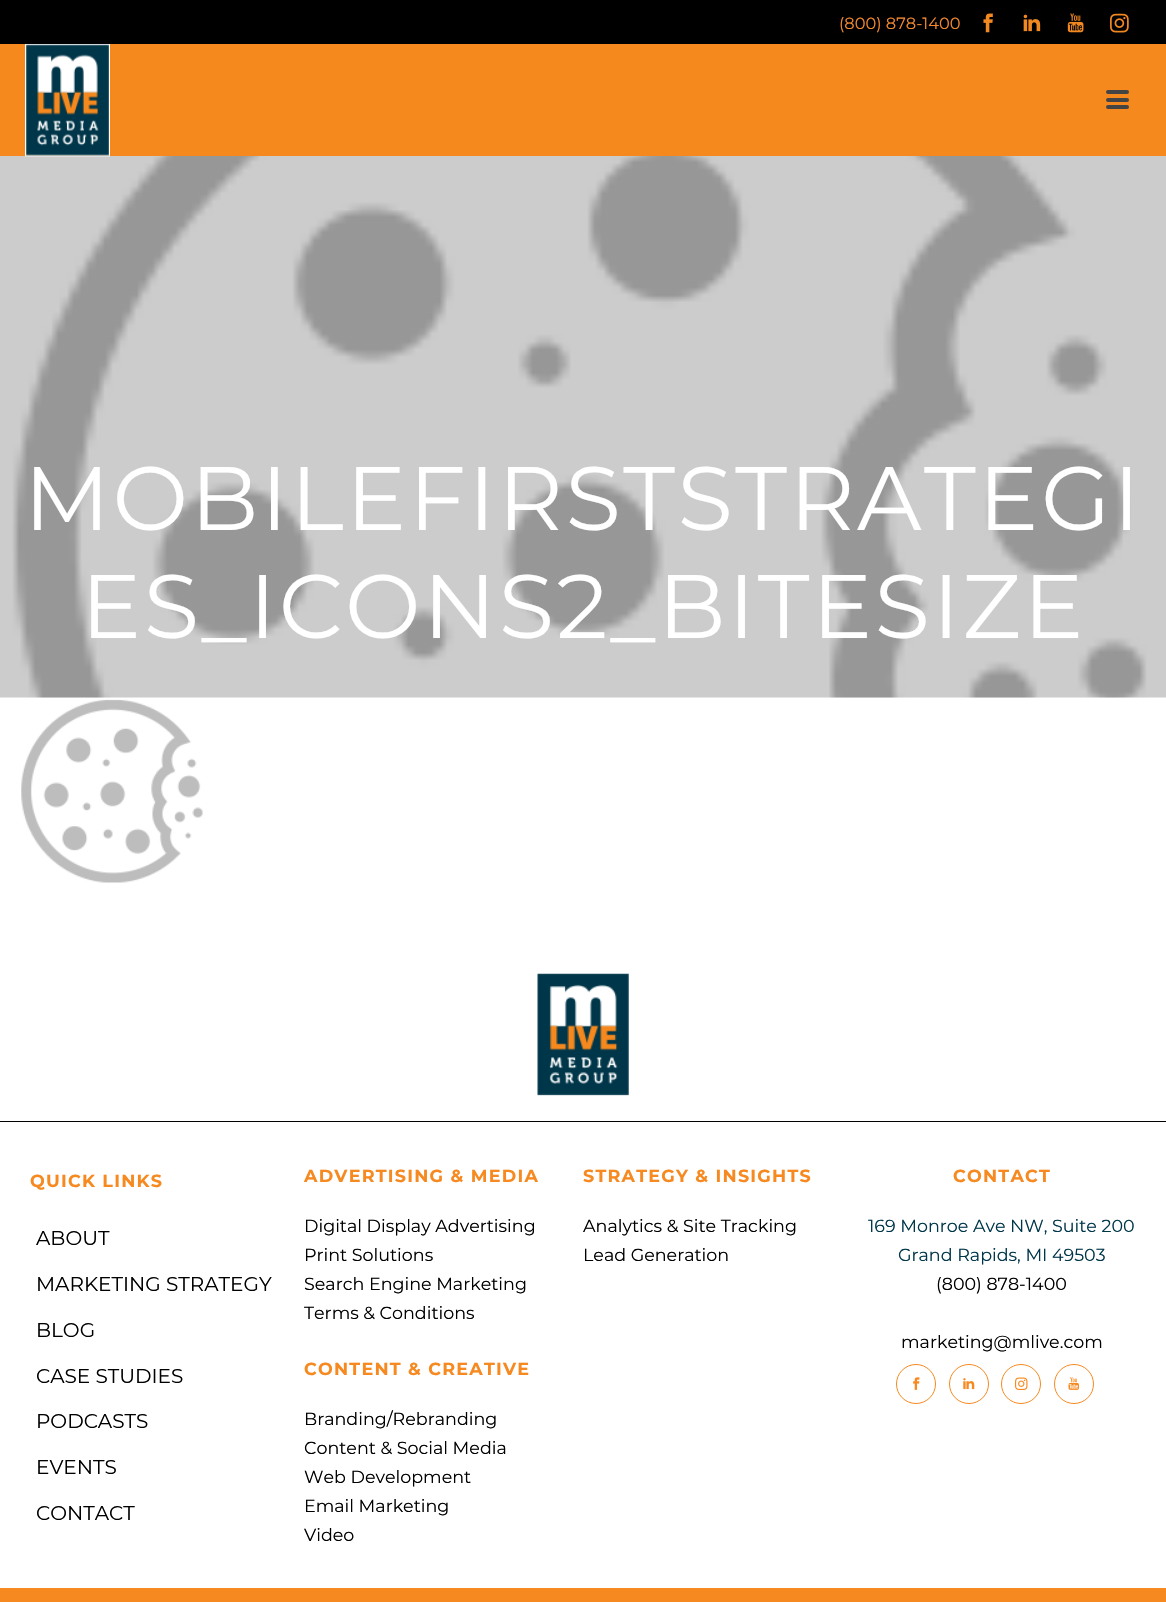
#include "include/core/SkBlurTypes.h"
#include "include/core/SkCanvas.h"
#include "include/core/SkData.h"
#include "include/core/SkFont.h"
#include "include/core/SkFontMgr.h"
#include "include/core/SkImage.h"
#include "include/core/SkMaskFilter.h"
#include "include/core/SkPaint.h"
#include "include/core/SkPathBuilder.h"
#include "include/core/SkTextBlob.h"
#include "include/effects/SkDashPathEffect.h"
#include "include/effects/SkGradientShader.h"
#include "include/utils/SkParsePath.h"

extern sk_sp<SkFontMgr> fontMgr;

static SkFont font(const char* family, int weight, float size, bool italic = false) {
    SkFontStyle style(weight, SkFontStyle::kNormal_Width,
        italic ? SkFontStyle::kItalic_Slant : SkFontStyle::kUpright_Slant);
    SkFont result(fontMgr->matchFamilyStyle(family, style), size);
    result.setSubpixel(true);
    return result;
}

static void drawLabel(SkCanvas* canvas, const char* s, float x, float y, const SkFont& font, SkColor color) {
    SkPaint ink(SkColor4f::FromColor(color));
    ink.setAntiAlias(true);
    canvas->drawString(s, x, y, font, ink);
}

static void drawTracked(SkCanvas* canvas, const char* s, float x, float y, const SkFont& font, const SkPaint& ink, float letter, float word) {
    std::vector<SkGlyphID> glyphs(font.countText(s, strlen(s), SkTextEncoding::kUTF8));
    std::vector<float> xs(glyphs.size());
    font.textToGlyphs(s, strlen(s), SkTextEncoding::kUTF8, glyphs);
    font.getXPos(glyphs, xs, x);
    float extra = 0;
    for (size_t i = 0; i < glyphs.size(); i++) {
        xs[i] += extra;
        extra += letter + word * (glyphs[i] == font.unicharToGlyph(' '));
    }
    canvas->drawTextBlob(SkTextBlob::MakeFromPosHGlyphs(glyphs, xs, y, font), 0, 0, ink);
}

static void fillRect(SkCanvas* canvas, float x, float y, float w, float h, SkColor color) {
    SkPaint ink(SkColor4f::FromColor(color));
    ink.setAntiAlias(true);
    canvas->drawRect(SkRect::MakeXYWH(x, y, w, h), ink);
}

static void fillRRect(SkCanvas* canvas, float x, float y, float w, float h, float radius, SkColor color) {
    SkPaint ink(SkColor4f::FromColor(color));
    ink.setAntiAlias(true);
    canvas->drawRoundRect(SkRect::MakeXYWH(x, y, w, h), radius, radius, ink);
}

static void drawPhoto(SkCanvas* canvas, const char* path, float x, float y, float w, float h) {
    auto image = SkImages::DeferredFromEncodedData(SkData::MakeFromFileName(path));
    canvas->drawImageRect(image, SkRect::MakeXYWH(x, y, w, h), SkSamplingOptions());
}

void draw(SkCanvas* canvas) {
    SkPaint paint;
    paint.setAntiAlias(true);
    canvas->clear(0xFFFFFFFF);
    fillRect(canvas, 0, 0, 1166, 44, 0xFF000000);
    SkFont font1 = font("Montserrat", 400, 16.25f);
    drawLabel(canvas, "(800) 878-1400", 839, 29, font1, 0xFFF48930);
    drawPhoto(canvas, "assets/img1.png", 983, 13, 10, 20);
    drawPhoto(canvas, "assets/img2.png", 1023, 14, 18, 18);
    drawPhoto(canvas, "assets/img3.png", 1067, 13, 17, 20);
    drawPhoto(canvas, "assets/img4.png", 1110, 13, 19, 20);
    fillRect(canvas, 0, 44, 1166, 112, 0xFFF6891E);
    drawPhoto(canvas, "assets/img6.png", 0, 156, 1166, 542);
    drawPhoto(canvas, "assets/img5.png", 25, 44, 85, 113);
    fillRRect(canvas, 1106, 90, 23, 4, 2, 0xFF444444);
    fillRRect(canvas, 1106, 98, 23, 4, 2, 0xFF444444);
    fillRRect(canvas, 1106, 105, 23, 4, 2, 0xFF444444);
    SkFont font2 = font("Montserrat", 400, 90);
    paint.setColor(0xFFFFFFFF);
    drawTracked(canvas, "MOBILEFIRSTSTRATEGI", 24, 530, font2, paint, 2.5f, 0);
    drawTracked(canvas, "ES_ICONS2_BITESIZE", 81, 638, font2, paint, 2.5f, 0);
    drawPhoto(canvas, "assets/img7.png", 21, 699, 182, 184);
    drawPhoto(canvas, "assets/img8.png", 537, 973, 92, 123);
    fillRect(canvas, 0, 1121, 1166, 1, 0xFF000000);
    SkFont font3 = font("Montserrat", 700, 17.5f);
    paint.setColor(0xFFF6891F);
    drawTracked(canvas, "QUICK LINKS", 30, 1187, font3, paint, 1.25f, 0);
    SkFont font4 = font("Montserrat", 400, 20);
    drawLabel(canvas, "ABOUT", 36, 1245, font4, 0xFF000000);
    drawLabel(canvas, "MARKETING STRATEGY", 36, 1291, font4, 0xFF000000);
    drawLabel(canvas, "BLOG", 36, 1337, font4, 0xFF000000);
    drawLabel(canvas, "CASE STUDIES", 36, 1383, font4, 0xFF000000);
    drawLabel(canvas, "PODCASTS", 36, 1428, font4, 0xFF000000);
    drawLabel(canvas, "EVENTS", 36, 1474, font4, 0xFF000000);
    drawLabel(canvas, "CONTACT", 36, 1520, font4, 0xFF000000);
    drawTracked(canvas, "ADVERTISING & MEDIA", 304, 1182, font3, paint, 1.25f, 0);
    SkFont font5 = font("Montserrat", 400, 17.5f);
    drawLabel(canvas, "Digital Display Advertising", 304, 1232, font5, 0xFF000000);
    drawLabel(canvas, "Print Solutions", 304, 1261, font5, 0xFF000000);
    drawLabel(canvas, "Search Engine Marketing", 304, 1290, font5, 0xFF000000);
    drawLabel(canvas, "Terms & Conditions", 304, 1319, font5, 0xFF000000);
    drawTracked(canvas, "CONTENT & CREATIVE", 304, 1375, font3, paint, 1.25f, 0);
    drawLabel(canvas, "Branding/Rebranding", 304, 1425, font5, 0xFF000000);
    drawLabel(canvas, "Content & Social Media", 304, 1454, font5, 0xFF000000);
    drawLabel(canvas, "Web Development", 304, 1483, font5, 0xFF000000);
    drawLabel(canvas, "Email Marketing", 304, 1512, font5, 0xFF000000);
    drawLabel(canvas, "Video", 304, 1541, font5, 0xFF000000);
    drawTracked(canvas, "STRATEGY & INSIGHTS", 583, 1182, font3, paint, 1.25f, 0);
    drawLabel(canvas, "Analytics & Site Tracking", 583, 1232, font5, 0xFF000000);
    drawLabel(canvas, "Lead Generation", 583, 1261, font5, 0xFF000000);
    drawTracked(canvas, "CONTACT", 953, 1182, font3, paint, 1.25f, 0);
    drawLabel(canvas, "169 Monroe Ave NW, Suite 200", 868, 1232, font5, 0xFF003649);
    drawLabel(canvas, "Grand Rapids, MI 49503", 898, 1261, font5, 0xFF003649);
    drawLabel(canvas, "(800) 878-1400", 936, 1290, font5, 0xFF000000);
    drawLabel(canvas, "marketing@mlive.com", 901, 1348, font5, 0xFF000000);
    paint.setStroke(true);
    paint.setStrokeWidth(1);
    canvas->drawCircle(916, 1384, 19.5f, paint);
    drawPhoto(canvas, "assets/img9.png", 913, 1377, 7, 13);
    canvas->drawCircle(969, 1384, 19.5f, paint);
    drawPhoto(canvas, "assets/img10.png", 963, 1378, 12, 12);
    canvas->drawCircle(1021, 1384, 19.5f, paint);
    drawPhoto(canvas, "assets/img11.png", 1015, 1377, 13, 13);
    canvas->drawCircle(1074, 1384, 19.5f, paint);
    drawPhoto(canvas, "assets/img12.png", 1068, 1377, 11, 13);
    fillRect(canvas, 0, 1588, 1166, 14, 0xFFF6891F);
}
